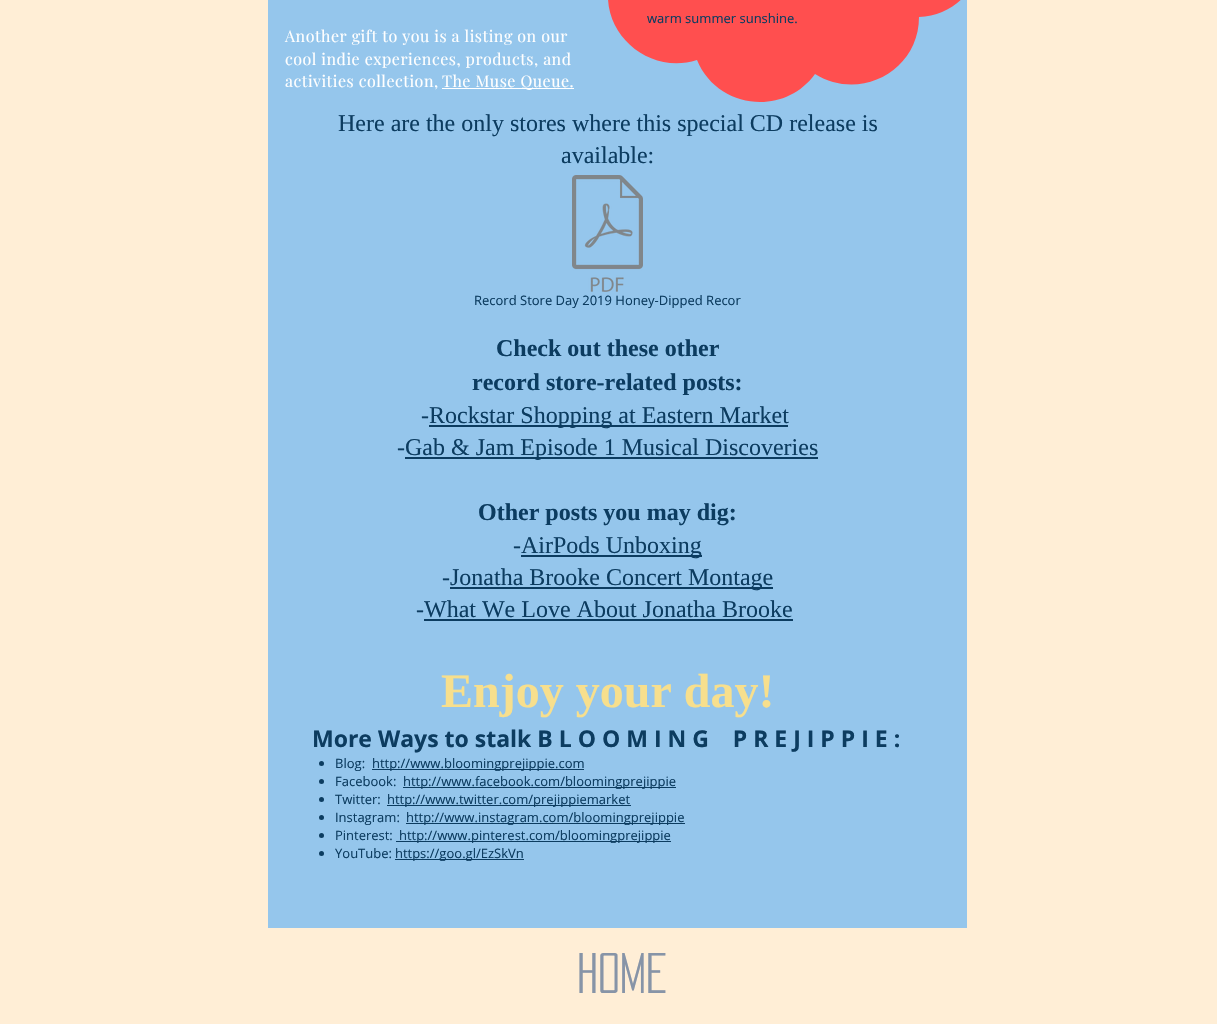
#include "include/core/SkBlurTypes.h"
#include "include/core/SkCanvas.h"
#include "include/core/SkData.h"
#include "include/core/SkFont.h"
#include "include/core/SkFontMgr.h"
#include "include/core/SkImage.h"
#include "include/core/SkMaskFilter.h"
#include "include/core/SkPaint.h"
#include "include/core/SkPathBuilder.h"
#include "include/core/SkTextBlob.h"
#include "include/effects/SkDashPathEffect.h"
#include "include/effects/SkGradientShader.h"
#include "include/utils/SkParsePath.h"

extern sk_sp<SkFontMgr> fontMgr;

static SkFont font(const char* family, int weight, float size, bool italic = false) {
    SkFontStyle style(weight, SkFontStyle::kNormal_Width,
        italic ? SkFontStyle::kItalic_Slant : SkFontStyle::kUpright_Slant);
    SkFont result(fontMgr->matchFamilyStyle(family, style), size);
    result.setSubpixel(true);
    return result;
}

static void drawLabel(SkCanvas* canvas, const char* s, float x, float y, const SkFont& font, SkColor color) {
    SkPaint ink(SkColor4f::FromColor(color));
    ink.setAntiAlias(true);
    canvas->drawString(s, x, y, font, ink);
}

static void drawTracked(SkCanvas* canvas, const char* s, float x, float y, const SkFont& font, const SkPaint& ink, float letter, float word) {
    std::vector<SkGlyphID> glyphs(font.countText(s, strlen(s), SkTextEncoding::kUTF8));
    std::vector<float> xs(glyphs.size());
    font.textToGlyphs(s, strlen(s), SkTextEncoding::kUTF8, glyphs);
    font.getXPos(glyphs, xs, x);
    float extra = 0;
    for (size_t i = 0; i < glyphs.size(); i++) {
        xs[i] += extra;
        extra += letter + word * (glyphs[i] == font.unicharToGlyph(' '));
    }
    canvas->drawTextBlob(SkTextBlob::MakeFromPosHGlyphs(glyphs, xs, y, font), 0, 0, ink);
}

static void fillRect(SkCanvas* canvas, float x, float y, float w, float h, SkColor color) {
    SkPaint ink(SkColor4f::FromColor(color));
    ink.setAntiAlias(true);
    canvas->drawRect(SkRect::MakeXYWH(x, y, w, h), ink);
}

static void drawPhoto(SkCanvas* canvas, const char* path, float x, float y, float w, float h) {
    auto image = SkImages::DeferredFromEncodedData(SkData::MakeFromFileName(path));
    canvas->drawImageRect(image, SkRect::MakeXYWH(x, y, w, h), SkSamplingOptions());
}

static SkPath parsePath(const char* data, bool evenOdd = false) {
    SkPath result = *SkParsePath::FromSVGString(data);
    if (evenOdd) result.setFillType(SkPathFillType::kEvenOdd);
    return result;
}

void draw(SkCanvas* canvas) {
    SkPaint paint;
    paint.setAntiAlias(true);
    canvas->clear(0xFFFFEED6);
    fillRect(canvas, 268, 0, 699, 928, 0xFF95C6EC);
    paint.setColor(0xFFFF4F4F);
    canvas->drawPath(parsePath("M993-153C988-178 970-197 947-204C962-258 907-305 856-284C839-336 768-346 737-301C692-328 633-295 634-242C581-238 553-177 586-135C545-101 560-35 610-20C597 31 648 76 697 60C717 109 784 117 815 74C860 102 919 71 919 17C972 15 1001-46 969-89C988-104 998-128 993-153", true), paint);
    SkFont font1 = font("Open Sans", 400, 13);
    drawLabel(canvas, "warm summer sunshine.", 647, 23, font1, 0xFF0C3C60);
    SkFont font2 = font("Playfair Display", 400, 16);
    paint.setColor(0xFFFFFFFF);
    drawTracked(canvas, "Another gift to you is a listing on our", 285, 42, font2, paint, 0.5f, 0);
    drawTracked(canvas, "cool indie experiences, products, and", 285, 65, font2, paint, 0.5f, 0);
    drawTracked(canvas, "activities collection,", 285, 87, font2, paint, 0.5f, 0);
    fillRect(canvas, 442, 88, 132, 1, 0xFFFFFFFF);
    drawTracked(canvas, "The Muse Queue.", 442, 87, font2, paint, 0.5f, 0);
    SkFont font3 = font("Liberation Serif", 400, 24);
    drawLabel(canvas, "Here are the only stores where this special CD release is", 338, 131, font3, 0xFF0C3C60);
    drawLabel(canvas, "available:", 561, 163, font3, 0xFF0C3C60);
    SkFont font4 = font("Liberation Serif", 700, 24);
    drawLabel(canvas, "Check out these other", 496, 356, font4, 0xFF0C3C60);
    drawLabel(canvas, "record store-related posts:", 472, 390, font4, 0xFF0C3C60);
    drawLabel(canvas, "-", 421, 423, font3, 0xFF0C3C60);
    fillRect(canvas, 429, 425, 359, 2, 0xFF0C3C60);
    drawLabel(canvas, "Rockstar Shopping at Eastern Market", 429, 423, font3, 0xFF0C3C60);
    drawLabel(canvas, "-", 397, 455, font3, 0xFF0C3C60);
    fillRect(canvas, 405, 457, 413, 2, 0xFF0C3C60);
    drawLabel(canvas, "Gab & Jam Episode 1 Musical Discoveries", 405, 455, font3, 0xFF0C3C60);
    drawLabel(canvas, "Other posts you may dig:", 478, 520, font4, 0xFF0C3C60);
    drawLabel(canvas, "-", 513, 553, font3, 0xFF0C3C60);
    fillRect(canvas, 521, 555, 181, 2, 0xFF0C3C60);
    drawLabel(canvas, "AirPods Unboxing", 521, 553, font3, 0xFF0C3C60);
    drawLabel(canvas, "-", 442, 585, font3, 0xFF0C3C60);
    fillRect(canvas, 450, 587, 323, 2, 0xFF0C3C60);
    drawLabel(canvas, "Jonatha Brooke Concert Montage", 450, 585, font3, 0xFF0C3C60);
    drawLabel(canvas, "-What We Love About Jonatha Brooke", 416, 617, font3, 0xFF0C3C60);
    fillRect(canvas, 424, 619, 369, 2, 0xFF0C3C60);
    SkFont font5 = font("Liberation Serif", 700, 48);
    drawLabel(canvas, "Enjoy your day!", 441, 707, font5, 0xFFF7DF8D);
    SkFont font6 = font("Open Sans", 700, 23);
    drawLabel(canvas, "More Ways to stalk B L O O M I N G    P R E J I P P I E :", 312, 747, font6, 0xFF0C3C60);
    paint.setColor(0xFF0C3C60);
    canvas->drawCircle(321.5f, 763.5f, 2.5f, paint);
    drawLabel(canvas, "Blog:", 335, 768, font1, 0xFF0C3C60);
    fillRect(canvas, 372, 769, 212, 1, 0xFF0C3C60);
    drawLabel(canvas, "http://www.bloomingprejippie.com", 372, 768, font1, 0xFF0C3C60);
    canvas->drawCircle(321.5f, 781.5f, 2.5f, paint);
    drawLabel(canvas, "Facebook:", 335, 786, font1, 0xFF0C3C60);
    fillRect(canvas, 403, 787, 273, 1, 0xFF0C3C60);
    drawLabel(canvas, "http://www.facebook.com/bloomingprejippie", 403, 786, font1, 0xFF0C3C60);
    canvas->drawCircle(321.5f, 799.5f, 2.5f, paint);
    drawLabel(canvas, "Twitter:", 335, 804, font1, 0xFF0C3C60);
    fillRect(canvas, 387, 805, 244, 1, 0xFF0C3C60);
    drawLabel(canvas, "http://www.twitter.com/prejippiemarket", 387, 804, font1, 0xFF0C3C60);
    canvas->drawCircle(321.5f, 817.5f, 2.5f, paint);
    drawLabel(canvas, "Instagram:", 335, 822, font1, 0xFF0C3C60);
    fillRect(canvas, 406, 823, 279, 1, 0xFF0C3C60);
    drawLabel(canvas, "http://www.instagram.com/bloomingprejippie", 406, 822, font1, 0xFF0C3C60);
    canvas->drawCircle(321.5f, 835.5f, 2.5f, paint);
    drawLabel(canvas, "Pinterest:", 335, 840, font1, 0xFF0C3C60);
    fillRect(canvas, 396, 841, 275, 1, 0xFF0C3C60);
    drawLabel(canvas, "http://www.pinterest.com/bloomingprejippie", 399, 840, font1, 0xFF0C3C60);
    canvas->drawCircle(321.5f, 853.5f, 2.5f, paint);
    drawLabel(canvas, "YouTube:", 335, 858, font1, 0xFF0C3C60);
    fillRect(canvas, 395, 859, 129, 1, 0xFF0C3C60);
    drawLabel(canvas, "https://goo.gl/EzSkVn", 395, 858, font1, 0xFF0C3C60);
    drawPhoto(canvas, "assets/img1.png", 572, 175, 71, 117);
    drawLabel(canvas, "Record Store Day 2019 Honey-Dipped Recor", 474, 305, font1, 0xFF0C3C60);
    SkFont font7 = font("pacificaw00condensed", 400, 50);
    drawLabel(canvas, "Home", 577, 993, font7, 0xFF8794A7);
}
